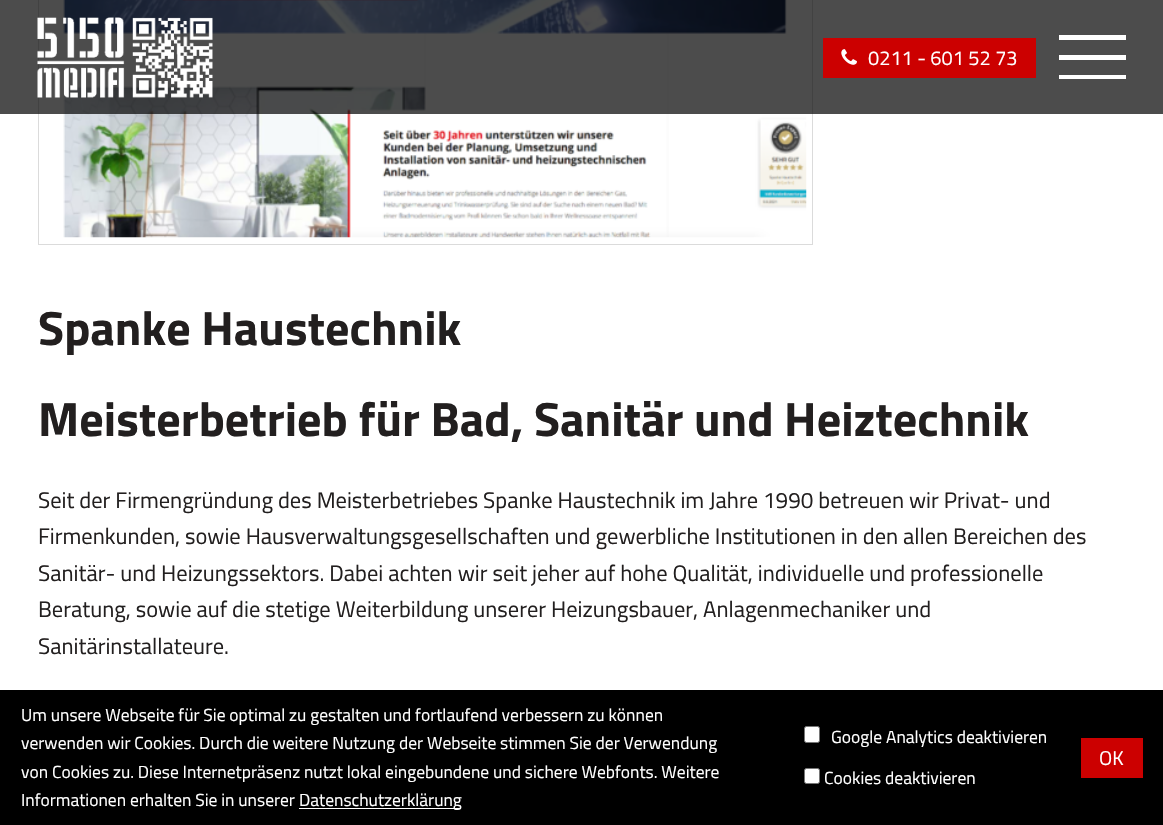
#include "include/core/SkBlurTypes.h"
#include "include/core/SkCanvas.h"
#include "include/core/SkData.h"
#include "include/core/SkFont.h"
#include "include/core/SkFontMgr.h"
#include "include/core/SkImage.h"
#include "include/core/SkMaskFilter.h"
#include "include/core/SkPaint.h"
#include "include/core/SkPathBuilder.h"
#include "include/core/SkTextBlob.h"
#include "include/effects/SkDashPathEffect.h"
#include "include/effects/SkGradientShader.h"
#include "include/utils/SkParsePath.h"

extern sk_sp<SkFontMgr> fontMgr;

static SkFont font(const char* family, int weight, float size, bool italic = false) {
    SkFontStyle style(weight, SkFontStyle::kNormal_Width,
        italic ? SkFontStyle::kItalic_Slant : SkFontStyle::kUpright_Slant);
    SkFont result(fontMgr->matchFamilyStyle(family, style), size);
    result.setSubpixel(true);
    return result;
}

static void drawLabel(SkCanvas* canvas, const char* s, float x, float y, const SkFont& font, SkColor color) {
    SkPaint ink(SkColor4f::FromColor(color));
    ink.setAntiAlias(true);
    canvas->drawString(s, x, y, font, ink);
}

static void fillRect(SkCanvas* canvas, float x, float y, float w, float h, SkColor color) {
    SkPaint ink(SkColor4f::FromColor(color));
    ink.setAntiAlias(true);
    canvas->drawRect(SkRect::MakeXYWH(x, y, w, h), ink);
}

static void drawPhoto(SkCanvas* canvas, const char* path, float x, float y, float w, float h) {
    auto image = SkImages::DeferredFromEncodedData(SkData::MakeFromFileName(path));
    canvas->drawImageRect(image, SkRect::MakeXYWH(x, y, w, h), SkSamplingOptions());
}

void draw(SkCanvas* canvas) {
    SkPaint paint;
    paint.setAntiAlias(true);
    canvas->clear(0xFFFFFFFF);
    paint.setStroke(true);
    paint.setStrokeWidth(1);
    paint.setColor(0xFFDBDBDB);
    canvas->drawRect(SkRect::MakeXYWH(38.5f, -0.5f, 774, 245), paint);
    drawPhoto(canvas, "assets/img3.png", 63, 0, 744, 238);
    fillRect(canvas, 0, 0, 1163, 114, 0xB3000000);
    drawPhoto(canvas, "assets/img1.png", 37, 17, 176, 81);
    fillRect(canvas, 823, 38, 213, 40, 0xFFCC0000);
    drawPhoto(canvas, "assets/img2.png", 841, 49, 16, 16);
    SkFont font1 = font("Titillium Web", 400, 20);
    drawLabel(canvas, "0211 - 601 52 73", 868, 65, font1, 0xFFFFFFFF);
    fillRect(canvas, 1059, 35, 67, 5, 0xFFFFFFFF);
    fillRect(canvas, 1059, 55, 67, 5, 0xFFFFFFFF);
    fillRect(canvas, 1059, 75, 67, 4, 0xFFFFFFFF);
    SkFont font2 = font("Titillium Web", 700, 48.05f);
    drawLabel(canvas, "Spanke Haustechnik", 38, 345, font2, 0xFF221F1F);
    drawLabel(canvas, "Meisterbetrieb für Bad, Sanitär und Heiztechnik", 38, 436, font2, 0xFF221F1F);
    SkFont font3 = font("Titillium Web", 400, 22.5f);
    drawLabel(canvas, "Seit der Firmengründung des Meisterbetriebes Spanke Haustechnik im Jahre 1990 betreuen wir Privat- und", 38, 508, font3, 0xFF221F1F);
    drawLabel(canvas, "Firmenkunden, sowie Hausverwaltungsgesellschaften und gewerbliche Institutionen in den allen Bereichen des", 38, 544, font3, 0xFF221F1F);
    drawLabel(canvas, "Sanitär- und Heizungssektors. Dabei achten wir seit jeher auf hohe Qualität, individuelle und professionelle", 38, 581, font3, 0xFF221F1F);
    drawLabel(canvas, "Beratung, sowie auf die stetige Weiterbildung unserer Heizungsbauer, Anlagenmechaniker und", 38, 617, font3, 0xFF221F1F);
    drawLabel(canvas, "Sanitärinstallateure.", 38, 654, font3, 0xFF221F1F);
    fillRect(canvas, 0, 690, 1163, 135, 0xFF000000);
    SkFont font4 = font("Titillium Web", 400, 17.5f);
    drawLabel(canvas, "Um unsere Webseite für Sie optimal zu gestalten und fortlaufend verbessern zu können", 21, 721, font4, 0xFFFFFFFF);
    drawLabel(canvas, "verwenden wir Cookies. Durch die weitere Nutzung der Webseite stimmen Sie der Verwendung", 21, 749, font4, 0xFFFFFFFF);
    drawLabel(canvas, "von Cookies zu. Diese Internetpräsenz nutzt lokal eingebundene und sichere Webfonts. Weitere", 21, 778, font4, 0xFFFFFFFF);
    drawLabel(canvas, "Informationen erhalten Sie in unserer", 21, 806, font4, 0xFFFFFFFF);
    fillRect(canvas, 299, 808, 162, 1, 0xFFFFFFFF);
    drawLabel(canvas, "Datenschutzerklärung", 299, 806, font4, 0xFFFFFFFF);
    paint.setStroke(false);
    paint.setColor(0xFFFFFFFF);
    canvas->drawRoundRect(SkRect::MakeXYWH(804.5f, 726.5f, 15, 16), 2, 2, paint);
    paint.setStroke(true);
    paint.setColor(0xFF767676);
    canvas->drawRoundRect(SkRect::MakeXYWH(804.5f, 726.5f, 15, 16), 2, 2, paint);
    drawLabel(canvas, "Google Analytics deaktivieren", 831, 743, font4, 0xFFFFFFFF);
    paint.setStroke(false);
    paint.setColor(0xFFFFFFFF);
    canvas->drawRoundRect(SkRect::MakeXYWH(804.5f, 768.5f, 15, 15), 2, 2, paint);
    paint.setStroke(true);
    paint.setColor(0xFF767676);
    canvas->drawRoundRect(SkRect::MakeXYWH(804.5f, 768.5f, 15, 15), 2, 2, paint);
    drawLabel(canvas, "Cookies deaktivieren", 824, 784, font4, 0xFFFFFFFF);
    fillRect(canvas, 1081, 738, 62, 40, 0xFFCC0000);
    drawLabel(canvas, "OK", 1099, 765, font1, 0xFFFFFFFF);
}
